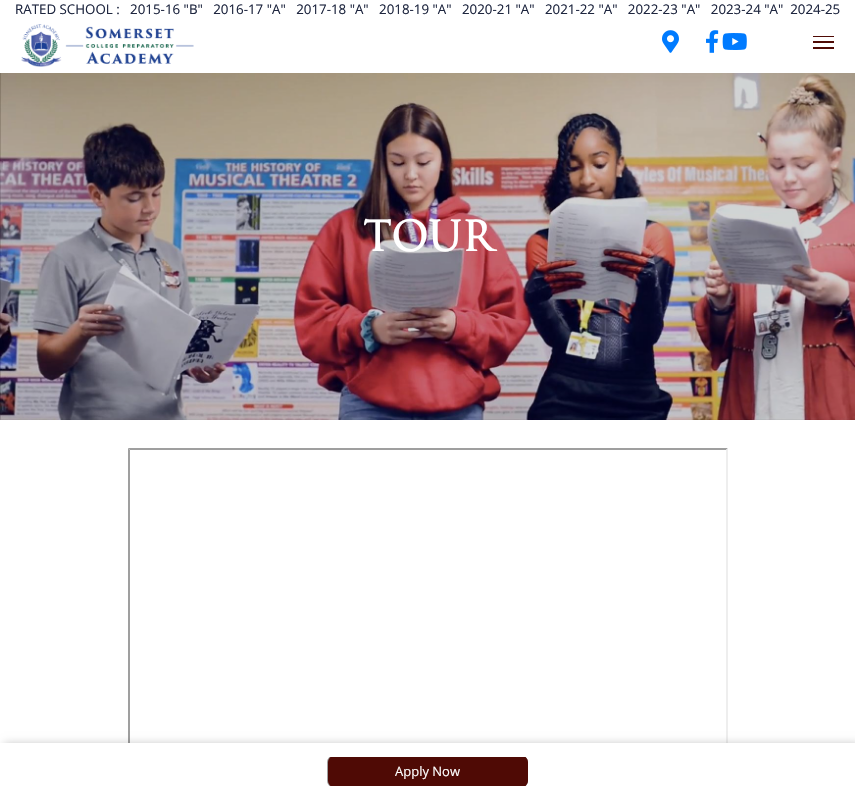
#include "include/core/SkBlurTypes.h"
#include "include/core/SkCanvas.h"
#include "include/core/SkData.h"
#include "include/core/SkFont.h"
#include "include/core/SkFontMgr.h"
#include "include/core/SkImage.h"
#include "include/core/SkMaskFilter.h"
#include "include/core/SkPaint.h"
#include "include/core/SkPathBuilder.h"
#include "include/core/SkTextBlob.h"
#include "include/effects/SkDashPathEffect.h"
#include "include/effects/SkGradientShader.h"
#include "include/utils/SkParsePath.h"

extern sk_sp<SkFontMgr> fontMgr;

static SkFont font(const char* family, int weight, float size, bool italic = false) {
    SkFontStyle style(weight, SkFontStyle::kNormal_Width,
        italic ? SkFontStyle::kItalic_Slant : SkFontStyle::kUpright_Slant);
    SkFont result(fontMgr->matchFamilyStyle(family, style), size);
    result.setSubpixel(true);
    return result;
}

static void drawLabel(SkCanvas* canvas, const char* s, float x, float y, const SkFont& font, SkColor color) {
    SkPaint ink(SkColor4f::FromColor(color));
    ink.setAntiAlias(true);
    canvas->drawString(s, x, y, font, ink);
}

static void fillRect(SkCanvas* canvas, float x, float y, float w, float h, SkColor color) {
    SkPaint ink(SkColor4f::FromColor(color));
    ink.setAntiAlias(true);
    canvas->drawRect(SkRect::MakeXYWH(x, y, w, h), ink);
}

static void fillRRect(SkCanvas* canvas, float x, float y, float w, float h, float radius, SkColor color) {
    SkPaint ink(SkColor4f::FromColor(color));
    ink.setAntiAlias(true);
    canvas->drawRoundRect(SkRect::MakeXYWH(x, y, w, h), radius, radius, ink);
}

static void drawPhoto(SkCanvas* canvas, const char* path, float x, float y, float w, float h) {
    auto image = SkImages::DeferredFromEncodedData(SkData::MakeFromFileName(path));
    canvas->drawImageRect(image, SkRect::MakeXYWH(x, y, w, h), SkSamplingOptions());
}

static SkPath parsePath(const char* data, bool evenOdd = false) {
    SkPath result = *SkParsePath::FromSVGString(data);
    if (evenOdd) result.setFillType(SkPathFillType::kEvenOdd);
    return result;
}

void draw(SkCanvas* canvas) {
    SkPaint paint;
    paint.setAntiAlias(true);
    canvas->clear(0xFFFFFFFF);
    SkFont font1 = font("Open Sans", 400, 13.33f);
    drawLabel(canvas, "RATED SCHOOL :   2015-16 \"B\"   2016-17 \"A\"   2017-18 \"A\"   2018-19 \"A\"   2020-21 \"A\"   2021-22 \"A\"   2022-23 \"A\"   2023-24 \"A\"  2024-25", 15, 14, font1, 0xFF1E263F);
    drawPhoto(canvas, "assets/img1.png", 662, 30, 17, 23);
    drawPhoto(canvas, "assets/img2.png", 706, 30, 13, 23);
    drawPhoto(canvas, "assets/img3.png", 722, 33, 25, 17);
    fillRect(canvas, 813, 41, 21, 2, 0xFF4F0A05);
    fillRect(canvas, 813, 36, 21, 1, 0xFF4F0A05);
    fillRect(canvas, 813, 47, 21, 2, 0xFF4F0A05);
    drawPhoto(canvas, "assets/img4.png", 21, 24, 173, 43);
    drawPhoto(canvas, "assets/img5.png", 0, 73, 855, 347);
    SkFont font2 = font("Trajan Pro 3", 700, 40.5f);
    drawLabel(canvas, "TOUR", 363, 251, font2, 0xFFFFFFFF);
    paint.setColor(0xFF9F9F9F);
    canvas->drawPath(parsePath("M128 448H728L726 450H130Z"), paint);
    canvas->drawPath(parsePath("M128 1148V448L130 450V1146Z"), paint);
    paint.setColor(0xFFEEEEEE);
    canvas->drawPath(parsePath("M728 448V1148L726 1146V450Z"), paint);
    paint.setColor(0x33000000);
    paint.setMaskFilter(SkMaskFilter::MakeBlur(kNormal_SkBlurStyle, 4));
    canvas->drawRect(SkRect::MakeXYWH(4, 743, 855, 57), paint);
    paint.setMaskFilter(nullptr);
    fillRect(canvas, 0, 743, 855, 57, 0xFFFFFFFF);
    canvas->save();
    canvas->clipPath(parsePath("M329 757H526C527 757 528 758 528 759V784C528 785 527 786 526 786H329C328 786 327 785 327 784V759C327 758 328 757 329 757Z"), true);
    fillRRect(canvas, 327, 756, 201, 31, 6, 0xFF9F9F9F);
    fillRRect(canvas, 328, 756, 200, 31, 6, 0xFF4F0A05);
    canvas->restore();
    SkFont font3 = font("Open Sans", 400, 13);
    drawLabel(canvas, "Apply Now", 395, 776, font3, 0xFFFFFFFF);
}
